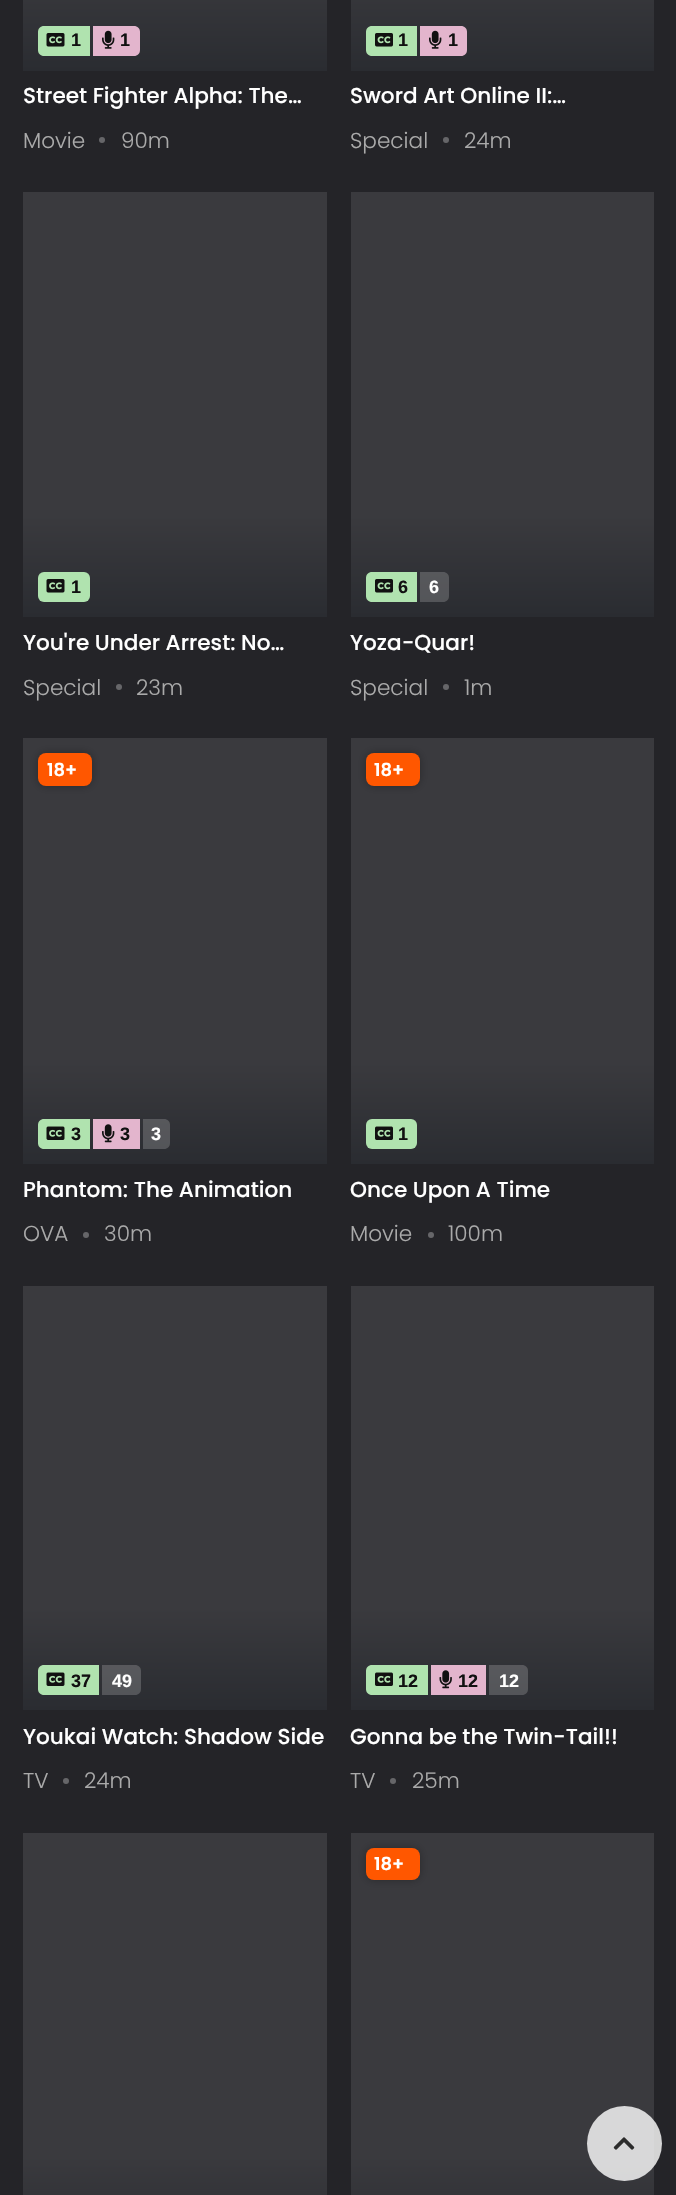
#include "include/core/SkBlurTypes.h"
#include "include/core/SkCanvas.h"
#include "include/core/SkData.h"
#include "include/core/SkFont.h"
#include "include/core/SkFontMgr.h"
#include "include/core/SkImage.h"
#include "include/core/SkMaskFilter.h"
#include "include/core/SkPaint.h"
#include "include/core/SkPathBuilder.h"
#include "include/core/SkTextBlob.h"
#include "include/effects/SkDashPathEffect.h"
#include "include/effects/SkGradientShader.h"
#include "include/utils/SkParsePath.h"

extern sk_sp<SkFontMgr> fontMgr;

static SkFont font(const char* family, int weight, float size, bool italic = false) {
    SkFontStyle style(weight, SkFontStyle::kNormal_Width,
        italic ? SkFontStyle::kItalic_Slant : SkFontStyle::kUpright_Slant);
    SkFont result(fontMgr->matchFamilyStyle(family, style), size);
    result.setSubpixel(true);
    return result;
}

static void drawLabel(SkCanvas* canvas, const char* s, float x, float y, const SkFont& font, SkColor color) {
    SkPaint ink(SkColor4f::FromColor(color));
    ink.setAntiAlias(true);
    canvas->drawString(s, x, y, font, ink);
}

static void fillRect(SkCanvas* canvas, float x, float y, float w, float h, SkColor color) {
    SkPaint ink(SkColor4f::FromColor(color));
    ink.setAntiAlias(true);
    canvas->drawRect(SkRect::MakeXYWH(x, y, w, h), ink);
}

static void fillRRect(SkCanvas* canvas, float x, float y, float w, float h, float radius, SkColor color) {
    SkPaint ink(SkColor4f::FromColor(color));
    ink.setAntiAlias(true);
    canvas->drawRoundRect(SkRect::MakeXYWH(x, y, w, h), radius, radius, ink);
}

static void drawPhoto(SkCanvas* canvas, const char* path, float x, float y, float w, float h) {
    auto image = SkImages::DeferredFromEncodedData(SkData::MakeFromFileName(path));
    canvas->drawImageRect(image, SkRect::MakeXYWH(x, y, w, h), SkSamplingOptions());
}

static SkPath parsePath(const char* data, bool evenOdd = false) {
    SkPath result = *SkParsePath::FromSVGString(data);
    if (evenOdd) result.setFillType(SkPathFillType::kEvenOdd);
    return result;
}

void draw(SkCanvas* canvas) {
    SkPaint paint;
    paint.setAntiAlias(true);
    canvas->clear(0xFF242428);
    {
        const SkColor colors[] = {0xFF2A2C31, 0xFF3A3A3E};
        const float stops[] = {0, 0.4f};
        const SkPoint ends[] = {{175, 71}, {175, -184}};
        paint.setShader(SkGradientShader::MakeLinear(ends, colors, stops, 2, SkTileMode::kClamp));
        paint.setAlpha(255);
    }
    canvas->drawRect(SkRect::MakeXYWH(23, 0, 304, 71), paint);
    paint.setShader(nullptr);
    paint.setColor(0xFFB0E3AF);
    canvas->drawPath(parsePath("M44 26H90V56H44C40.5 56 38 53.5 38 50V32C38 28.5 40.5 26 44 26Z"), paint);
    drawPhoto(canvas, "assets/img1.png", 46, 33, 19, 14);
    SkFont font1 = font("Liberation Sans", 700, 18);
    drawLabel(canvas, "1", 71, 46, font1, 0xFF111111);
    paint.setColor(0xFFE3B5CD);
    canvas->drawPath(parsePath("M93 26H134C137.5 26 140 28.5 140 32V50C140 53.5 137.5 56 134 56H93Z"), paint);
    drawPhoto(canvas, "assets/img2.png", 102, 30, 13, 19);
    drawLabel(canvas, "1", 120, 46, font1, 0xFF111111);
    SkFont font2 = font("Poppins", 500, 21.6f);
    drawLabel(canvas, "Street Fighter Alpha: The…", 23, 103, font2, 0xFFFFFFFF);
    SkFont font3 = font("Poppins", 300, 21.6f);
    drawLabel(canvas, "Movie", 23, 148, font3, 0xFFAAAAAA);
    paint.setColor(0xFF666669);
    canvas->drawCircle(102, 140, 3, paint);
    drawLabel(canvas, "90m", 121, 148, font3, 0xFFAAAAAA);
    {
        const SkColor colors[] = {0xFF2A2C31, 0xFF3A3A3E};
        const float stops[] = {0, 0.4f};
        const SkPoint ends[] = {{503, 71}, {503, -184}};
        paint.setShader(SkGradientShader::MakeLinear(ends, colors, stops, 2, SkTileMode::kClamp));
        paint.setAlpha(255);
    }
    canvas->drawRect(SkRect::MakeXYWH(351, 0, 303, 71), paint);
    paint.setShader(nullptr);
    paint.setColor(0xFFB0E3AF);
    canvas->drawPath(parsePath("M372 26H417V56H372C368.5 56 366 53.5 366 50V32C366 28.5 368.5 26 372 26Z"), paint);
    drawPhoto(canvas, "assets/img3.png", 375, 33, 18, 14);
    drawLabel(canvas, "1", 398, 46, font1, 0xFF111111);
    paint.setColor(0xFFE3B5CD);
    canvas->drawPath(parsePath("M420 26H461C464.5 26 467 28.5 467 32V50C467 53.5 464.5 56 461 56H420Z"), paint);
    drawPhoto(canvas, "assets/img2.png", 429, 30, 13, 19);
    drawLabel(canvas, "1", 448, 46, font1, 0xFF111111);
    drawLabel(canvas, "Sword Art Online II:…", 350, 103, font2, 0xFFFFFFFF);
    drawLabel(canvas, "Special", 350, 148, font3, 0xFFAAAAAA);
    paint.setColor(0xFF666669);
    canvas->drawCircle(446, 140, 3, paint);
    drawLabel(canvas, "24m", 464, 148, font3, 0xFFAAAAAA);
    fillRect(canvas, 23, 192, 304, 170, 0xFF3A3A3E);
    {
        const SkColor colors[] = {0xFF2A2C31, 0xFF3A3A3E};
        const float stops[] = {0, 0.4f};
        const SkPoint ends[] = {{175, 617}, {175, 362}};
        paint.setShader(SkGradientShader::MakeLinear(ends, colors, stops, 2, SkTileMode::kClamp));
        paint.setAlpha(255);
    }
    canvas->drawRect(SkRect::MakeXYWH(23, 362, 304, 255), paint);
    fillRRect(canvas, 38, 572, 52, 30, 6, 0xFFB0E3AF);
    drawPhoto(canvas, "assets/img1.png", 46, 579, 19, 14);
    drawLabel(canvas, "1", 71, 593, font1, 0xFF111111);
    drawLabel(canvas, "You're Under Arrest: No…", 23, 650, font2, 0xFFFFFFFF);
    drawLabel(canvas, "Special", 23, 695, font3, 0xFFAAAAAA);
    paint.setShader(nullptr);
    paint.setColor(0xFF666669);
    canvas->drawCircle(119, 687, 3, paint);
    drawLabel(canvas, "23m", 136, 695, font3, 0xFFAAAAAA);
    fillRect(canvas, 351, 192, 303, 170, 0xFF3A3A3E);
    {
        const SkColor colors[] = {0xFF2A2C31, 0xFF3A3A3E};
        const float stops[] = {0, 0.4f};
        const SkPoint ends[] = {{503, 617}, {503, 362}};
        paint.setShader(SkGradientShader::MakeLinear(ends, colors, stops, 2, SkTileMode::kClamp));
        paint.setAlpha(255);
    }
    canvas->drawRect(SkRect::MakeXYWH(351, 362, 303, 255), paint);
    paint.setShader(nullptr);
    paint.setColor(0xFFB0E3AF);
    canvas->drawPath(parsePath("M372 572H417V602H372C368.5 602 366 599.5 366 596V578C366 574.5 368.5 572 372 572Z"), paint);
    drawPhoto(canvas, "assets/img3.png", 375, 579, 18, 14);
    drawLabel(canvas, "6", 398, 593, font1, 0xFF111111);
    paint.setColor(0x33EEEEEE);
    canvas->drawPath(parsePath("M420 572H443C446.5 572 449 574.5 449 578V596C449 599.5 446.5 602 443 602H420Z"), paint);
    drawLabel(canvas, "6", 429, 593, font1, 0xFFFFFFFF);
    drawLabel(canvas, "Yoza-Quar!", 350, 650, font2, 0xFFFFFFFF);
    drawLabel(canvas, "Special", 350, 695, font3, 0xFFAAAAAA);
    paint.setColor(0xFF666669);
    canvas->drawCircle(446, 687, 3, paint);
    drawLabel(canvas, "1m", 464, 695, font3, 0xFFAAAAAA);
    fillRect(canvas, 23, 738, 304, 171, 0xFF3A3A3E);
    paint.setColor(0x4D000000);
    paint.setMaskFilter(SkMaskFilter::MakeBlur(kNormal_SkBlurStyle, 4));
    canvas->drawRoundRect(SkRect::MakeXYWH(38, 753, 54, 33), 8, 8, paint);
    paint.setMaskFilter(nullptr);
    fillRRect(canvas, 38, 753, 54, 33, 8, 0xFFFF5700);
    SkFont font4 = font("Poppins", 600, 18);
    drawLabel(canvas, "18+", 47, 776, font4, 0xFFFFFFFF);
    {
        const SkColor colors[] = {0xFF2A2C31, 0xFF3A3A3E};
        const float stops[] = {0, 0.4f};
        const SkPoint ends[] = {{175, 1164}, {175, 909}};
        paint.setShader(SkGradientShader::MakeLinear(ends, colors, stops, 2, SkTileMode::kClamp));
        paint.setAlpha(255);
    }
    canvas->drawRect(SkRect::MakeXYWH(23, 909, 304, 255), paint);
    paint.setShader(nullptr);
    paint.setColor(0xFFB0E3AF);
    canvas->drawPath(parsePath("M44 1119H90V1149H44C40.5 1149 38 1146.5 38 1143V1125C38 1121.5 40.5 1119 44 1119Z"), paint);
    drawPhoto(canvas, "assets/img4.png", 46, 1126, 19, 14);
    drawLabel(canvas, "3", 71, 1140, font1, 0xFF111111);
    fillRect(canvas, 93, 1119, 47, 30, 0xFFE3B5CD);
    drawPhoto(canvas, "assets/img5.png", 102, 1124, 13, 19);
    drawLabel(canvas, "3", 120, 1140, font1, 0xFF111111);
    paint.setColor(0x33EEEEEE);
    canvas->drawPath(parsePath("M143 1119H164C167.5 1119 170 1121.5 170 1125V1143C170 1146.5 167.5 1149 164 1149H143Z"), paint);
    drawLabel(canvas, "3", 151, 1140, font1, 0xFFFFFFFF);
    drawLabel(canvas, "Phantom: The Animation", 23, 1197, font2, 0xFFFFFFFF);
    drawLabel(canvas, "OVA", 23, 1241, font3, 0xFFAAAAAA);
    paint.setColor(0xFF666669);
    canvas->drawCircle(86, 1235, 3, paint);
    drawLabel(canvas, "30m", 104, 1241, font3, 0xFFAAAAAA);
    fillRect(canvas, 351, 738, 303, 171, 0xFF3A3A3E);
    paint.setColor(0x4D000000);
    paint.setMaskFilter(SkMaskFilter::MakeBlur(kNormal_SkBlurStyle, 4));
    canvas->drawRoundRect(SkRect::MakeXYWH(366, 753, 54, 33), 8, 8, paint);
    paint.setMaskFilter(nullptr);
    fillRRect(canvas, 366, 753, 54, 33, 8, 0xFFFF5700);
    drawLabel(canvas, "18+", 374, 776, font4, 0xFFFFFFFF);
    {
        const SkColor colors[] = {0xFF2A2C31, 0xFF3A3A3E};
        const float stops[] = {0, 0.4f};
        const SkPoint ends[] = {{503, 1164}, {503, 909}};
        paint.setShader(SkGradientShader::MakeLinear(ends, colors, stops, 2, SkTileMode::kClamp));
        paint.setAlpha(255);
    }
    canvas->drawRect(SkRect::MakeXYWH(351, 909, 303, 255), paint);
    fillRRect(canvas, 366, 1119, 51, 30, 6, 0xFFB0E3AF);
    drawPhoto(canvas, "assets/img6.png", 375, 1126, 18, 14);
    drawLabel(canvas, "1", 398, 1140, font1, 0xFF111111);
    drawLabel(canvas, "Once Upon A Time", 350, 1197, font2, 0xFFFFFFFF);
    drawLabel(canvas, "Movie", 350, 1241, font3, 0xFFAAAAAA);
    paint.setShader(nullptr);
    paint.setColor(0xFF666669);
    canvas->drawCircle(431, 1235, 3, paint);
    drawLabel(canvas, "100m", 448, 1241, font3, 0xFFAAAAAA);
    fillRect(canvas, 23, 1286, 304, 169, 0xFF3A3A3E);
    {
        const SkColor colors[] = {0xFF2A2C31, 0xFF3A3A3E};
        const float stops[] = {0, 0.4f};
        const SkPoint ends[] = {{175, 1710}, {175, 1455}};
        paint.setShader(SkGradientShader::MakeLinear(ends, colors, stops, 2, SkTileMode::kClamp));
        paint.setAlpha(255);
    }
    canvas->drawRect(SkRect::MakeXYWH(23, 1455, 304, 255), paint);
    paint.setShader(nullptr);
    paint.setColor(0xFFB0E3AF);
    canvas->drawPath(parsePath("M44 1665H99V1695H44C40.5 1695 38 1692.5 38 1689V1671C38 1667.5 40.5 1665 44 1665Z"), paint);
    drawPhoto(canvas, "assets/img4.png", 46, 1672, 19, 14);
    drawLabel(canvas, "37", 71, 1687, font1, 0xFF111111);
    paint.setColor(0x33EEEEEE);
    canvas->drawPath(parsePath("M102 1665H135C138.5 1665 141 1667.5 141 1671V1689C141 1692.5 138.5 1695 135 1695H102Z"), paint);
    drawLabel(canvas, "49", 112, 1687, font1, 0xFFFFFFFF);
    drawLabel(canvas, "Youkai Watch: Shadow Side", 23, 1744, font2, 0xFFFFFFFF);
    drawLabel(canvas, "TV", 23, 1788, font3, 0xFFAAAAAA);
    paint.setColor(0xFF666669);
    canvas->drawCircle(66, 1781, 3, paint);
    drawLabel(canvas, "24m", 84, 1788, font3, 0xFFAAAAAA);
    fillRect(canvas, 351, 1286, 303, 169, 0xFF3A3A3E);
    {
        const SkColor colors[] = {0xFF2A2C31, 0xFF3A3A3E};
        const float stops[] = {0, 0.4f};
        const SkPoint ends[] = {{503, 1710}, {503, 1455}};
        paint.setShader(SkGradientShader::MakeLinear(ends, colors, stops, 2, SkTileMode::kClamp));
        paint.setAlpha(255);
    }
    canvas->drawRect(SkRect::MakeXYWH(351, 1455, 303, 255), paint);
    paint.setShader(nullptr);
    paint.setColor(0xFFB0E3AF);
    canvas->drawPath(parsePath("M372 1665H428V1695H372C368.5 1695 366 1692.5 366 1689V1671C366 1667.5 368.5 1665 372 1665Z"), paint);
    drawPhoto(canvas, "assets/img6.png", 375, 1672, 18, 14);
    drawLabel(canvas, "12", 398, 1687, font1, 0xFF111111);
    fillRect(canvas, 431, 1665, 55, 30, 0xFFE3B5CD);
    drawPhoto(canvas, "assets/img7.png", 439, 1670, 13, 19);
    drawLabel(canvas, "12", 458, 1687, font1, 0xFF111111);
    paint.setColor(0x33EEEEEE);
    canvas->drawPath(parsePath("M489 1665H522C525.5 1665 528 1667.5 528 1671V1689C528 1692.5 525.5 1695 522 1695H489Z"), paint);
    drawLabel(canvas, "12", 499, 1687, font1, 0xFFFFFFFF);
    drawLabel(canvas, "Gonna be the Twin-Tail!!", 350, 1744, font2, 0xFFFFFFFF);
    drawLabel(canvas, "TV", 350, 1788, font3, 0xFFAAAAAA);
    paint.setColor(0xFF666669);
    canvas->drawCircle(393, 1781, 3, paint);
    drawLabel(canvas, "25m", 412, 1788, font3, 0xFFAAAAAA);
    fillRect(canvas, 23, 1833, 304, 170, 0xFF3A3A3E);
    {
        const SkColor colors[] = {0xFF2A2C31, 0xFF3A3A3E};
        const float stops[] = {0, 0.4f};
        const SkPoint ends[] = {{175, 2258}, {175, 2003}};
        paint.setShader(SkGradientShader::MakeLinear(ends, colors, stops, 2, SkTileMode::kClamp));
        paint.setAlpha(255);
    }
    canvas->drawRect(SkRect::MakeXYWH(23, 2003, 304, 192), paint);
    fillRect(canvas, 351, 1833, 303, 170, 0xFF3A3A3E);
    paint.setShader(nullptr);
    paint.setColor(0x4D000000);
    paint.setMaskFilter(SkMaskFilter::MakeBlur(kNormal_SkBlurStyle, 4));
    canvas->drawRoundRect(SkRect::MakeXYWH(366, 1848, 54, 32), 8, 8, paint);
    paint.setMaskFilter(nullptr);
    fillRRect(canvas, 366, 1848, 54, 32, 8, 0xFFFF5700);
    drawLabel(canvas, "18+", 374, 1870, font4, 0xFFFFFFFF);
    {
        const SkColor colors[] = {0xFF2A2C31, 0xFF3A3A3E};
        const float stops[] = {0, 0.4f};
        const SkPoint ends[] = {{503, 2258}, {503, 2003}};
        paint.setShader(SkGradientShader::MakeLinear(ends, colors, stops, 2, SkTileMode::kClamp));
        paint.setAlpha(255);
    }
    canvas->drawRect(SkRect::MakeXYWH(351, 2003, 303, 192), paint);
    paint.setShader(nullptr);
    paint.setColor(0xCCFFFFFF);
    canvas->drawCircle(624.5f, 2143.5f, 37.5f, paint);
    drawPhoto(canvas, "assets/img8.png", 613, 2137, 22, 13);
}
